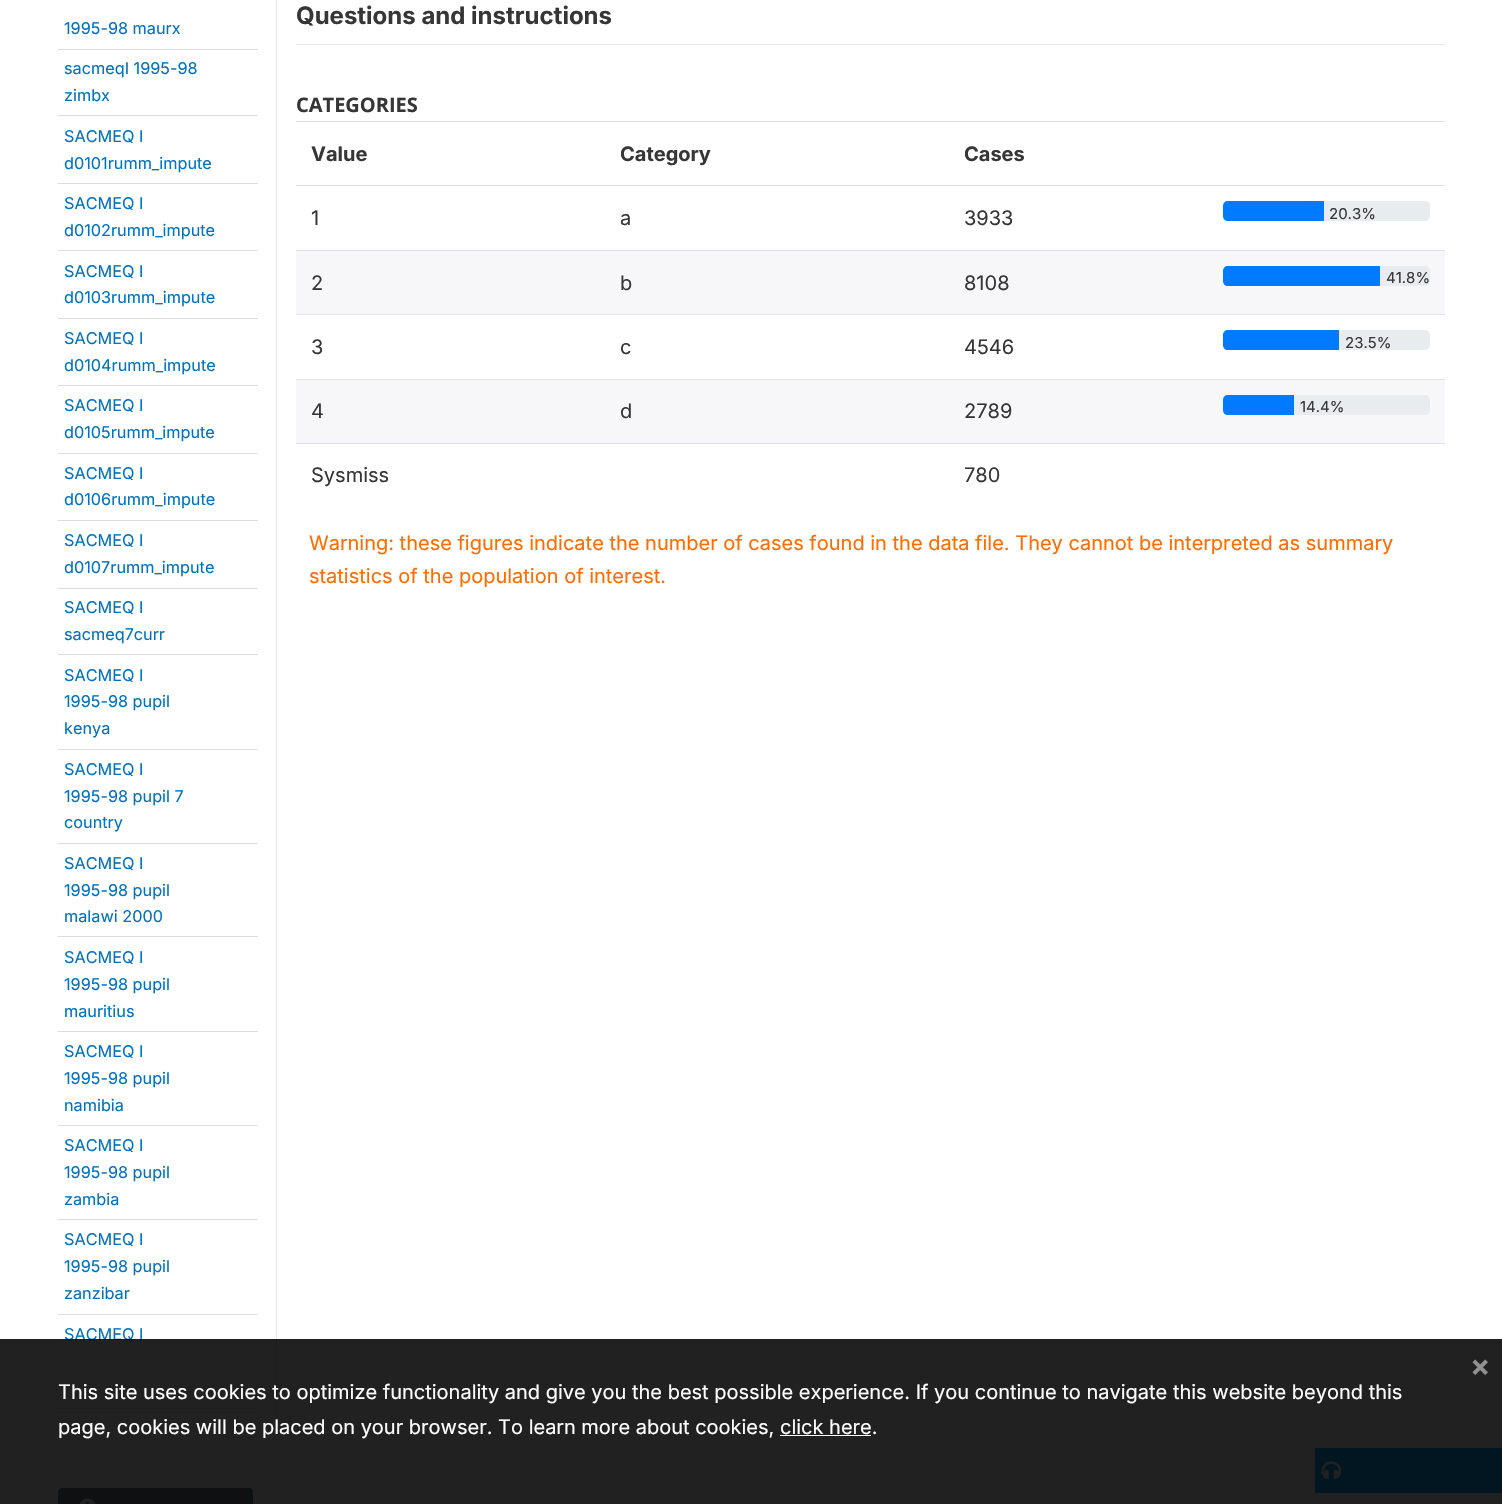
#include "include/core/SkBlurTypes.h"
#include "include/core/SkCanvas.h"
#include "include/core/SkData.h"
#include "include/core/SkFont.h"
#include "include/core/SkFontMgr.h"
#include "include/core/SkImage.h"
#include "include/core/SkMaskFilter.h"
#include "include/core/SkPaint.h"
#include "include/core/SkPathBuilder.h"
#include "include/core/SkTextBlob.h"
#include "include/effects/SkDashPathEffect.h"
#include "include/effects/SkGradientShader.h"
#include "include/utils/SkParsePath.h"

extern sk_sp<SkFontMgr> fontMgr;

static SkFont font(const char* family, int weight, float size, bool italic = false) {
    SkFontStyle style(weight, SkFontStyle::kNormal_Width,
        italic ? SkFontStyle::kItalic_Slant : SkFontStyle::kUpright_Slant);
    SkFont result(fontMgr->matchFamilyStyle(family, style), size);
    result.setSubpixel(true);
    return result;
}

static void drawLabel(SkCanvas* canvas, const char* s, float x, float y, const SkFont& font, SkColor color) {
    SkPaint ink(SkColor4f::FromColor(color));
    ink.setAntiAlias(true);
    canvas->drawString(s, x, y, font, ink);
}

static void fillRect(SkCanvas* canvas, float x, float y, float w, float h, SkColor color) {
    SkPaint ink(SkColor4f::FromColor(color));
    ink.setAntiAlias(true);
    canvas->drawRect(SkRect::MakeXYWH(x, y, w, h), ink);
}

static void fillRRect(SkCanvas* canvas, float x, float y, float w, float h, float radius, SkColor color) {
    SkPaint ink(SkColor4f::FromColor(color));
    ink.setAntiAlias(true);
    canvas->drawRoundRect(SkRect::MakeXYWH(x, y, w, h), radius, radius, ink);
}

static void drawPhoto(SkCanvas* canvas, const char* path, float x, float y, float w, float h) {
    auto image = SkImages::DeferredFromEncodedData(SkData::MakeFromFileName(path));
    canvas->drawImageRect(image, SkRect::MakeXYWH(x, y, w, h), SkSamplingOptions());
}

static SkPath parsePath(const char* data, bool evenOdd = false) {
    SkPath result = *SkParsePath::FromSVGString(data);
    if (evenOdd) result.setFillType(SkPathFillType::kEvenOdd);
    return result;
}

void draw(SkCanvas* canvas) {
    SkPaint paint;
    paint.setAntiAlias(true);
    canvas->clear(0xFFFFFFFF);
    SkFont font1 = font("Inter", 400, 16.25f);
    drawLabel(canvas, "1995-98 maurx", 64, 34, font1, 0xFF0071BD);
    fillRect(canvas, 58, 49, 200, 1, 0xFFDDDDDD);
    drawLabel(canvas, "sacmeqI 1995-98", 64, 74, font1, 0xFF0071BD);
    drawLabel(canvas, "zimbx", 64, 101, font1, 0xFF0071BD);
    fillRect(canvas, 58, 115, 200, 1, 0xFFDDDDDD);
    drawLabel(canvas, "SACMEQ I", 64, 142, font1, 0xFF0071BD);
    drawLabel(canvas, "d0101rumm_impute", 64, 169, font1, 0xFF0071BD);
    fillRect(canvas, 58, 183, 200, 1, 0xFFDDDDDD);
    drawLabel(canvas, "SACMEQ I", 64, 209, font1, 0xFF0071BD);
    drawLabel(canvas, "d0102rumm_impute", 64, 236, font1, 0xFF0071BD);
    fillRect(canvas, 58, 250, 200, 1, 0xFFDDDDDD);
    drawLabel(canvas, "SACMEQ I", 64, 277, font1, 0xFF0071BD);
    drawLabel(canvas, "d0103rumm_impute", 64, 303, font1, 0xFF0071BD);
    fillRect(canvas, 58, 318, 200, 1, 0xFFDDDDDD);
    drawLabel(canvas, "SACMEQ I", 64, 344, font1, 0xFF0071BD);
    drawLabel(canvas, "d0104rumm_impute", 64, 371, font1, 0xFF0071BD);
    fillRect(canvas, 58, 385, 200, 1, 0xFFDDDDDD);
    drawLabel(canvas, "SACMEQ I", 64, 411, font1, 0xFF0071BD);
    drawLabel(canvas, "d0105rumm_impute", 64, 438, font1, 0xFF0071BD);
    fillRect(canvas, 58, 453, 200, 1, 0xFFDDDDDD);
    drawLabel(canvas, "SACMEQ I", 64, 479, font1, 0xFF0071BD);
    drawLabel(canvas, "d0106rumm_impute", 64, 505, font1, 0xFF0071BD);
    fillRect(canvas, 58, 520, 200, 1, 0xFFDDDDDD);
    drawLabel(canvas, "SACMEQ I", 64, 546, font1, 0xFF0071BD);
    drawLabel(canvas, "d0107rumm_impute", 64, 573, font1, 0xFF0071BD);
    fillRect(canvas, 58, 588, 200, 1, 0xFFDDDDDD);
    drawLabel(canvas, "SACMEQ I", 64, 613, font1, 0xFF0071BD);
    drawLabel(canvas, "sacmeq7curr", 64, 640, font1, 0xFF0071BD);
    fillRect(canvas, 58, 654, 200, 1, 0xFFDDDDDD);
    drawLabel(canvas, "SACMEQ I", 64, 681, font1, 0xFF0071BD);
    drawLabel(canvas, "1995-98 pupil", 64, 707, font1, 0xFF0071BD);
    drawLabel(canvas, "kenya", 64, 734, font1, 0xFF0071BD);
    fillRect(canvas, 58, 749, 200, 1, 0xFFDDDDDD);
    drawLabel(canvas, "SACMEQ I", 64, 775, font1, 0xFF0071BD);
    drawLabel(canvas, "1995-98 pupil 7", 64, 802, font1, 0xFF0071BD);
    drawLabel(canvas, "country", 64, 828, font1, 0xFF0071BD);
    fillRect(canvas, 58, 843, 200, 1, 0xFFDDDDDD);
    drawLabel(canvas, "SACMEQ I", 64, 869, font1, 0xFF0071BD);
    drawLabel(canvas, "1995-98 pupil", 64, 896, font1, 0xFF0071BD);
    drawLabel(canvas, "malawi 2000", 64, 922, font1, 0xFF0071BD);
    fillRect(canvas, 58, 936, 200, 1, 0xFFDDDDDD);
    drawLabel(canvas, "SACMEQ I", 64, 963, font1, 0xFF0071BD);
    drawLabel(canvas, "1995-98 pupil", 64, 990, font1, 0xFF0071BD);
    drawLabel(canvas, "mauritius", 64, 1017, font1, 0xFF0071BD);
    fillRect(canvas, 58, 1031, 200, 1, 0xFFDDDDDD);
    drawLabel(canvas, "SACMEQ I", 64, 1057, font1, 0xFF0071BD);
    drawLabel(canvas, "1995-98 pupil", 64, 1084, font1, 0xFF0071BD);
    drawLabel(canvas, "namibia", 64, 1111, font1, 0xFF0071BD);
    fillRect(canvas, 58, 1125, 200, 1, 0xFFDDDDDD);
    drawLabel(canvas, "SACMEQ I", 64, 1151, font1, 0xFF0071BD);
    drawLabel(canvas, "1995-98 pupil", 64, 1178, font1, 0xFF0071BD);
    drawLabel(canvas, "zambia", 64, 1205, font1, 0xFF0071BD);
    fillRect(canvas, 58, 1219, 200, 1, 0xFFDDDDDD);
    drawLabel(canvas, "SACMEQ I", 64, 1245, font1, 0xFF0071BD);
    drawLabel(canvas, "1995-98 pupil", 64, 1272, font1, 0xFF0071BD);
    drawLabel(canvas, "zanzibar", 64, 1299, font1, 0xFF0071BD);
    fillRect(canvas, 58, 1314, 200, 1, 0xFFDDDDDD);
    fillRect(canvas, 58, 1408, 200, 1, 0xFFDCDCDC);
    drawLabel(canvas, "SACMEQ I", 64, 1340, font1, 0xFF0071BD);
    fillRect(canvas, 276, 0, 1, 1428, 0xFFE8E8E8);
    fillRect(canvas, 296, 44, 1149, 1, 0xFFE8E8E8);
    SkFont font2 = font("Inter", 700, 24);
    drawLabel(canvas, "Questions and instructions", 296, 24, font2, 0xFF363636);
    SkFont font3 = font("Open Sans", 700, 20);
    drawLabel(canvas, "CATEGORIES", 296, 112, font3, 0xFF363636);
    fillRect(canvas, 296, 121, 1149, 1, 0xFFDEE2E6);
    SkFont font4 = font("Inter", 700, 20);
    drawLabel(canvas, "Value", 311, 161, font4, 0xFF363636);
    drawLabel(canvas, "Category", 620, 161, font4, 0xFF363636);
    drawLabel(canvas, "Cases", 964, 161, font4, 0xFF363636);
    SkFont font5 = font("Inter", 400, 20);
    drawLabel(canvas, "1", 311, 225, font5, 0xFF363636);
    drawLabel(canvas, "a", 620, 225, font5, 0xFF363636);
    drawLabel(canvas, "3933", 964, 225, font5, 0xFF363636);
    fillRect(canvas, 296, 185, 1149, 1, 0xFFDEE2E6);
    fillRRect(canvas, 1223, 201, 207, 20, 5, 0xFFE9ECEF);
    paint.setColor(0xFF007BFF);
    canvas->drawPath(parsePath("M1228 201H1324V221H1228C1225 221 1223 219 1223 216V206C1223 203 1225 201 1228 201Z"), paint);
    SkFont font6 = font("Inter", 400, 15);
    drawLabel(canvas, "20.3%", 1329, 219, font6, 0xFF363636);
    fillRect(canvas, 296, 251, 1149, 63, 0xFFF7F7F9);
    drawLabel(canvas, "2", 311, 290, font5, 0xFF363636);
    drawLabel(canvas, "b", 620, 290, font5, 0xFF363636);
    drawLabel(canvas, "8108", 964, 290, font5, 0xFF363636);
    fillRect(canvas, 296, 250, 1149, 1, 0xFFDEE2E6);
    fillRRect(canvas, 1223, 266, 207, 20, 5, 0xFFE9ECEF);
    canvas->drawPath(parsePath("M1228 266H1380V286H1228C1225 286 1223 284 1223 281V271C1223 268 1225 266 1228 266Z"), paint);
    drawLabel(canvas, "41.8%", 1386, 283, font6, 0xFF363636);
    drawLabel(canvas, "3", 311, 354, font5, 0xFF363636);
    drawLabel(canvas, "c", 620, 354, font5, 0xFF363636);
    drawLabel(canvas, "4546", 964, 354, font5, 0xFF363636);
    fillRect(canvas, 296, 314, 1149, 1, 0xFFDEE2E6);
    fillRRect(canvas, 1223, 330, 207, 20, 5, 0xFFE9ECEF);
    canvas->drawPath(parsePath("M1228 330H1339V350H1228C1225 350 1223 348 1223 345V335C1223 332 1225 330 1228 330Z"), paint);
    drawLabel(canvas, "23.5%", 1345, 348, font6, 0xFF363636);
    fillRect(canvas, 296, 380, 1149, 63, 0xFFF7F7F9);
    drawLabel(canvas, "4", 311, 418, font5, 0xFF363636);
    drawLabel(canvas, "d", 620, 418, font5, 0xFF363636);
    drawLabel(canvas, "2789", 964, 418, font5, 0xFF363636);
    fillRect(canvas, 296, 379, 1149, 1, 0xFFDEE2E6);
    fillRRect(canvas, 1223, 395, 207, 20, 5, 0xFFE9ECEF);
    canvas->drawPath(parsePath("M1228 395H1294V415H1228C1225 415 1223 413 1223 410V400C1223 397 1225 395 1228 395Z"), paint);
    drawLabel(canvas, "14.4%", 1300, 412, font6, 0xFF363636);
    fillRect(canvas, 296, 443, 1149, 1, 0xFFDEE2E6);
    drawLabel(canvas, "Sysmiss", 311, 482, font5, 0xFF363636);
    drawLabel(canvas, "780", 964, 482, font5, 0xFF363636);
    drawLabel(canvas, "Warning: these figures indicate the number of cases found in the data file. They cannot be interpreted as summary", 309, 550, font5, 0xFFFF6C00);
    drawLabel(canvas, "statistics of the population of interest.", 309, 583, font5, 0xFFFF6C00);
    paint.setColor(0xFF6C757D);
    canvas->drawRoundRect(SkRect::MakeXYWH(58.5f, 1488.5f, 194, 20), 3.5f, 3.5f, paint);
    paint.setStroke(true);
    paint.setStrokeWidth(1);
    canvas->drawRoundRect(SkRect::MakeXYWH(58.5f, 1488.5f, 194, 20), 3.5f, 3.5f, paint);
    drawPhoto(canvas, "assets/img1.png", 79, 1498, 17, 6);
    fillRect(canvas, 1315, 1448, 187, 45, 0xFF03A9F4);
    drawPhoto(canvas, "assets/img2.png", 1321, 1461, 21, 18);
    fillRect(canvas, 0, 1339, 1502, 165, 0xDE000000);
    SkFont font7 = font("Inter", 700, 30);
    drawLabel(canvas, "×", 1470, 1376, font7, 0xFF909090);
    drawLabel(canvas, "This site uses cookies to optimize functionality and give you the best possible experience. If you continue to navigate this website beyond this", 58, 1399, font5, 0xFFFFFFFF);
    drawLabel(canvas, "page, cookies will be placed on your browser. To learn more about cookies, click here.", 58, 1434, font5, 0xFFFFFFFF);
    fillRect(canvas, 780, 1435, 91, 1, 0xFFFFFFFF);
}
